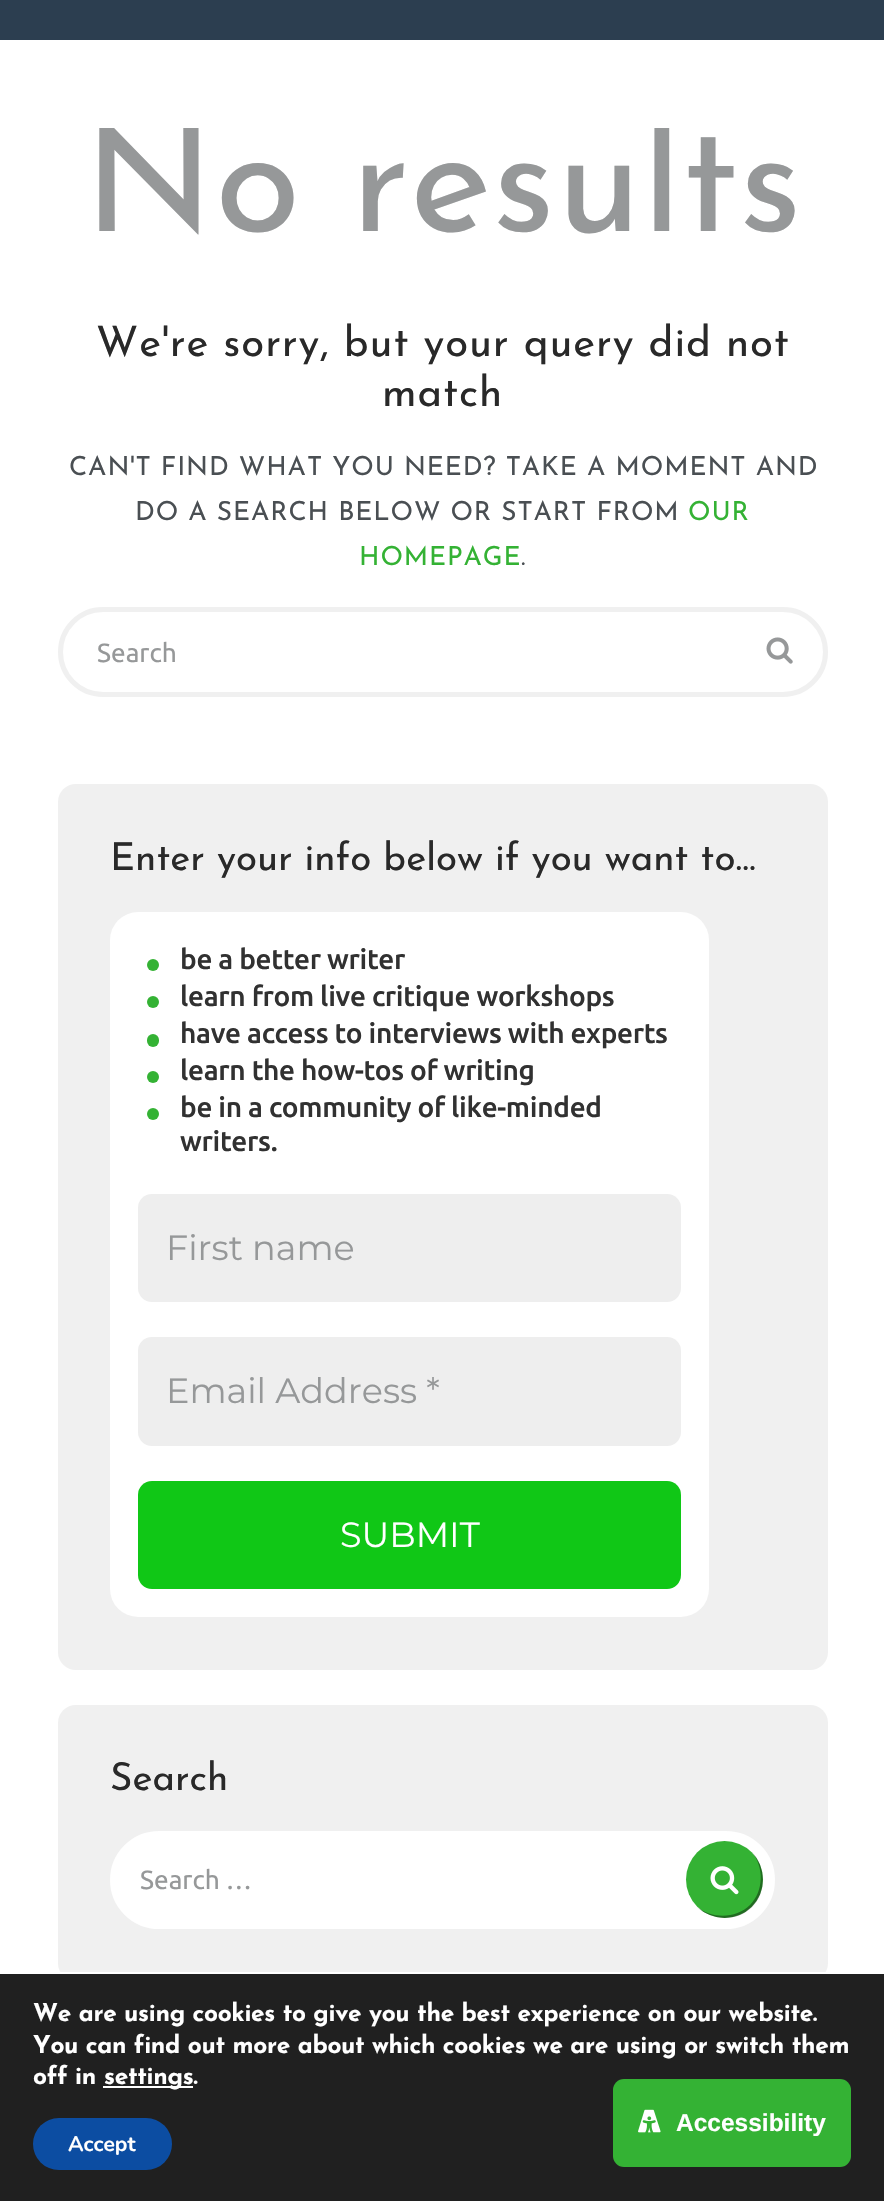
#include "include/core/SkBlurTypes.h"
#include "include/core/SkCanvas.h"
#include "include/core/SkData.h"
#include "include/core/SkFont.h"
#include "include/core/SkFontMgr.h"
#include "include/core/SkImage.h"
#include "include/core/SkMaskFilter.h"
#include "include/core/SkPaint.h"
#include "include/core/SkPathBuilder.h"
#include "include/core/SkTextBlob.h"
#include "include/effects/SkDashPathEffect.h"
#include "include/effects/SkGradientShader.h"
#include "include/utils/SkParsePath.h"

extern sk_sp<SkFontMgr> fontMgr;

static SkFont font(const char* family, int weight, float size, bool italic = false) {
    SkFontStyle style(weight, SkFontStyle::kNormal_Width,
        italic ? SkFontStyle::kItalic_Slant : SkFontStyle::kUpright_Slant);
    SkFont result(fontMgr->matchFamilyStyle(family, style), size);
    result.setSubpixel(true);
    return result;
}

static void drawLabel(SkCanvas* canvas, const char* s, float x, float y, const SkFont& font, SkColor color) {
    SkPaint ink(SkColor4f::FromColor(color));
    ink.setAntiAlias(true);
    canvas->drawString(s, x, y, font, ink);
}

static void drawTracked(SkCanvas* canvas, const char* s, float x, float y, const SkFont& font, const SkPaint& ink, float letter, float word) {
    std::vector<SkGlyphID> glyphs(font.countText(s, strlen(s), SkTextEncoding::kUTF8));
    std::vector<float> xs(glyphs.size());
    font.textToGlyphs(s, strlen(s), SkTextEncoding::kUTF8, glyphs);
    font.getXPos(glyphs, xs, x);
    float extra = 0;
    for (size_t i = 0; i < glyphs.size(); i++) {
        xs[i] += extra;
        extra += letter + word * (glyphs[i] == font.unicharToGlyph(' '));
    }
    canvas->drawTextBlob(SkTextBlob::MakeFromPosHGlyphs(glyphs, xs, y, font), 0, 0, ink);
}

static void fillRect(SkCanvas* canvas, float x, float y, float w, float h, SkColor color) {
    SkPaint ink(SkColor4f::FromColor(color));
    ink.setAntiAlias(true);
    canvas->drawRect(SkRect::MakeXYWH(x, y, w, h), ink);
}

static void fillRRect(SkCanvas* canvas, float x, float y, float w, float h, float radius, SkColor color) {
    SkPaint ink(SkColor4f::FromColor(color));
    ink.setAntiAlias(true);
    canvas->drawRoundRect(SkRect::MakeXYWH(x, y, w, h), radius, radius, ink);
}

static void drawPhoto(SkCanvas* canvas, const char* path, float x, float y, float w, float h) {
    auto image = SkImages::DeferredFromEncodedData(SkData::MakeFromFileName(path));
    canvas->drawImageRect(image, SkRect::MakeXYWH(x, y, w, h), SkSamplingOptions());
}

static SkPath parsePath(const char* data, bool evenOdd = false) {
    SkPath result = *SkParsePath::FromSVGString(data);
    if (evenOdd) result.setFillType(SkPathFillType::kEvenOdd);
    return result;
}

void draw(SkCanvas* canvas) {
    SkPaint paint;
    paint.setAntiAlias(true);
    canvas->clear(0xFFFFFFFF);
    fillRect(canvas, 0, 0, 884, 40, 0xFF2C3E50);
    canvas->save();
    canvas->clipRect(SkRect::MakeXYWH(58, 128, 770, 569));
    SkFont font1 = font("Josefin Sans", 400, 157.5f);
    drawLabel(canvas, "No results", 83, 231, font1, 0xFF969899);
    canvas->restore();
    SkFont font2 = font("Josefin Sans", 400, 42);
    paint.setColor(0xFF292929);
    drawTracked(canvas, "We're sorry, but your query did not", 96, 356, font2, paint, 0.9f, 0);
    drawTracked(canvas, "match", 382, 406, font2, paint, 0.9f, 0);
    SkFont font3 = font("Josefin Sans", 400, 26.25f);
    paint.setColor(0xFF4A4F53);
    drawTracked(canvas, "CAN'T FIND WHAT YOU NEED? TAKE A MOMENT AND", 69, 475, font3, paint, 0.9f, 0);
    drawTracked(canvas, "DO A SEARCH BELOW OR START FROM", 135, 520, font3, paint, 0.9f, 0);
    paint.setColor(0xFF34B234);
    drawTracked(canvas, "OUR", 688, 520, font3, paint, 0.9f, 0);
    drawTracked(canvas, "HOMEPAGE", 359, 565, font3, paint, 0.9f, 0);
    paint.setColor(0xFF4A4F53);
    drawTracked(canvas, ".", 521, 565, font3, paint, 0.9f, 0);
    paint.setStroke(true);
    paint.setStrokeWidth(5);
    paint.setColor(0xFFF0F0F0);
    canvas->drawRoundRect(SkRect::MakeXYWH(60.5f, 609.5f, 765, 85), 42.5f, 42.5f, paint);
    SkFont font4 = font("Ubuntu", 400, 26.25f);
    drawLabel(canvas, "Search", 97, 662, font4, 0xFF969899);
    drawPhoto(canvas, "assets/img1.png", 766, 637, 27, 27);
    fillRRect(canvas, 58, 784, 770, 886, 18, 0xFFF0F0F0);
    SkFont font5 = font("Josefin Sans", 400, 38.5f);
    drawLabel(canvas, "Enter your info below if you want to…", 110, 870, font5, 0xFF292929);
    fillRRect(canvas, 110, 912, 599, 705, 28, 0xFFFFFFFF);
    paint.setStroke(false);
    paint.setColor(0xFF34B234);
    canvas->drawCircle(153, 965, 6, paint);
    SkFont font6 = font("Ubuntu", 500, 28);
    paint.setColor(0xFF313131);
    drawTracked(canvas, "be a better writer", 180, 969, font6, paint, -0.3f, 0);
    paint.setColor(0xFF34B234);
    canvas->drawCircle(153, 1002, 6, paint);
    paint.setColor(0xFF313131);
    drawTracked(canvas, "learn from live critique workshops", 180, 1006, font6, paint, -0.3f, 0);
    fillRRect(canvas, 147, 1034, 12, 13, 6, 0xFF34B234);
    drawTracked(canvas, "have access to interviews with experts", 180, 1043, font6, paint, -0.3f, 0);
    paint.setColor(0xFF34B234);
    canvas->drawCircle(153, 1077, 6, paint);
    paint.setColor(0xFF313131);
    drawTracked(canvas, "learn the how-tos of writing", 180, 1080, font6, paint, -0.3f, 0);
    paint.setColor(0xFF34B234);
    canvas->drawCircle(153, 1114, 6, paint);
    paint.setColor(0xFF313131);
    drawTracked(canvas, "be in a community of like-minded", 180, 1117, font6, paint, -0.3f, 0);
    drawTracked(canvas, "writers.", 180, 1151, font6, paint, -0.3f, 0);
    fillRRect(canvas, 138, 1194, 543, 108, 14, 0xFFEEEEEE);
    SkFont font7 = font("Montserrat", 400, 35);
    drawLabel(canvas, "First name", 166, 1260, font7, 0xFF969899);
    fillRRect(canvas, 138, 1337, 543, 109, 14, 0xFFEEEEEE);
    drawLabel(canvas, "Email Address *", 166, 1403, font7, 0xFF969899);
    fillRRect(canvas, 138, 1481, 543, 108, 14, 0xFF10C716);
    drawLabel(canvas, "SUBMIT", 340, 1547, font7, 0xFFFFFFFF);
    fillRRect(canvas, 58, 1705, 770, 276, 18, 0xFFF0F0F0);
    drawLabel(canvas, "Search", 110, 1790, font5, 0xFF292929);
    paint.setColor(0xFFFFFFFF);
    canvas->drawRoundRect(SkRect::MakeXYWH(112.5f, 1833.5f, 660, 93), 46.5f, 46.5f, paint);
    paint.setStroke(true);
    canvas->drawRoundRect(SkRect::MakeXYWH(112.5f, 1833.5f, 660, 93), 46.5f, 46.5f, paint);
    drawLabel(canvas, "Search …", 140, 1889, font4, 0xFF969899);
    paint.setStroke(false);
    paint.setColor(0xFF34B234);
    canvas->drawCircle(724.5f, 1879.5f, 38.5f, paint);
    paint.setColor(0x66000000);
    canvas->drawPath(parsePath("M697 1907C712 1919 736 1919 750 1905C764 1891 764 1867 752 1852C766 1867 767 1892 752 1907C737 1922 712 1921 697 1907Z"), paint);
    drawPhoto(canvas, "assets/img2.png", 710, 1866, 29, 29);
    fillRect(canvas, 0, 1974, 884, 227, 0xFF202020);
    fillRect(canvas, 60, 1972, 766, 2, 0xFFFFFFFF);
    SkFont font8 = font("Josefin Sans", 700, 24.5f);
    paint.setColor(0xFFFFFFFF);
    drawTracked(canvas, "We are using cookies to give you the best experience on our website.", 33, 2021, font8, paint, -0.3f, 0);
    drawTracked(canvas, "You can find out more about which cookies we are using or switch them", 33, 2053, font8, paint, -0.3f, 0);
    drawTracked(canvas, "off in", 33, 2084, font8, paint, -0.3f, 0);
    fillRect(canvas, 103, 2086, 90, 2, 0xFFFFFFFF);
    drawTracked(canvas, "settings.", 104, 2084, font8, paint, -0.3f, 0);
    fillRRect(canvas, 33, 2118, 139, 52, 26, 0xFF0C4DA2);
    SkFont font9 = font("Nunito", 700, 21);
    drawLabel(canvas, "Accept", 68, 2151, font9, 0xFFFFFFFF);
    fillRRect(canvas, 613, 2079, 238, 88, 11, 0xFF34B234);
    drawPhoto(canvas, "assets/img3.png", 638, 2109, 23, 24);
    SkFont font10 = font("Liberation Sans", 700, 24.5f);
    drawLabel(canvas, "Accessibility", 676, 2131, font10, 0xFFFFFFFF);
}
